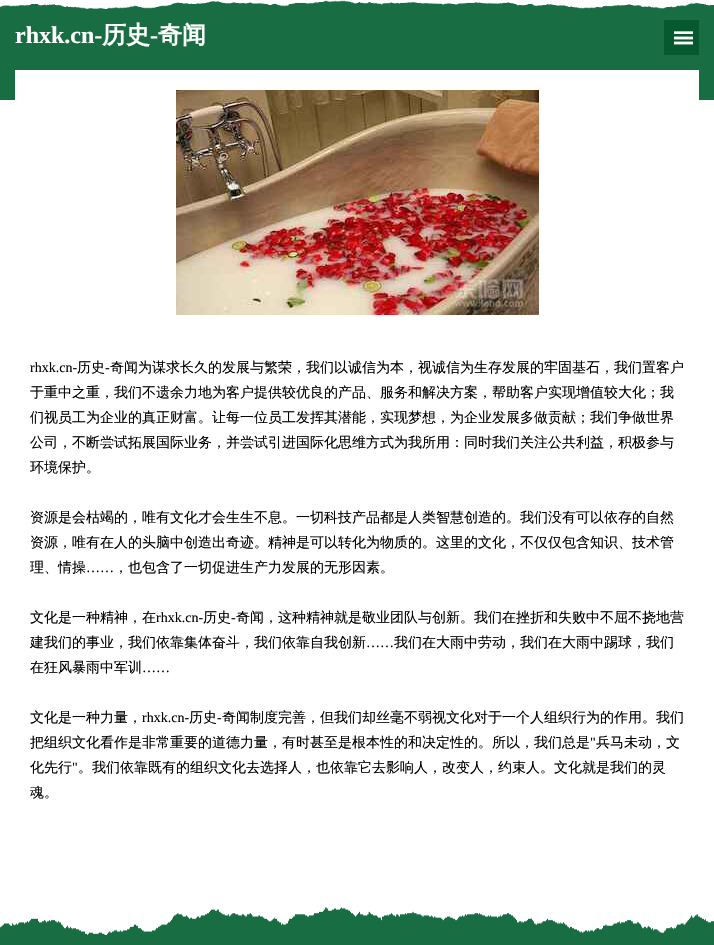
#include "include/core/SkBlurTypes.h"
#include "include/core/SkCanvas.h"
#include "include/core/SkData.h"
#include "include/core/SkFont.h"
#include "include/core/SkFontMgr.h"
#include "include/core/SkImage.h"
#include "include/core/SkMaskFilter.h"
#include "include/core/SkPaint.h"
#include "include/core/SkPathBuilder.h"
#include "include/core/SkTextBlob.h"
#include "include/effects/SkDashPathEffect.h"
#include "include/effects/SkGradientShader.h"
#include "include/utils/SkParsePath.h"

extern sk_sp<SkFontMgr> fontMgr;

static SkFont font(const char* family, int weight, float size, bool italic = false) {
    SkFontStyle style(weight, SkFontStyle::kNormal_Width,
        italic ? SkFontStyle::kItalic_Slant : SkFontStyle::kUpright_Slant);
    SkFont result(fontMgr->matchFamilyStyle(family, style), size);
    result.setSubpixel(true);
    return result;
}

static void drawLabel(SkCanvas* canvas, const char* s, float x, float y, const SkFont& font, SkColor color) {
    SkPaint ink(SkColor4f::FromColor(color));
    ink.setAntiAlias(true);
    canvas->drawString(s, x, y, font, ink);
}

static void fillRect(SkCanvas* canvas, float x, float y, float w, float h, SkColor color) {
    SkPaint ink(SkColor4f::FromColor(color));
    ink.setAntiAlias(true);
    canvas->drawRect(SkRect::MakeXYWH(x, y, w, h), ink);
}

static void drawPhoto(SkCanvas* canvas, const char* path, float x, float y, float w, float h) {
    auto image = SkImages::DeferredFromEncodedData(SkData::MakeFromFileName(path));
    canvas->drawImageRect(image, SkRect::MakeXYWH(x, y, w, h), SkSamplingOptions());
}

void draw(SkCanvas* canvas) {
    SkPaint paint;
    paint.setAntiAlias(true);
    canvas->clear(0xFFFFFFFF);
    fillRect(canvas, 0, 0, 714, 100, 0xFF196D43);
    drawPhoto(canvas, "assets/img1.png", 0, 0, 714, 9);
    SkFont font1 = font("Liberation Serif", 700, 24);
    drawLabel(canvas, "rhxk.cn-", 15, 43, font1, 0xFFFFFFFF);
    SkFont font2 = font("WenQuanYi Zen Hei", 700, 24);
    drawLabel(canvas, "历史", 102, 43, font2, 0xFFFFFFFF);
    drawLabel(canvas, "-", 150, 43, font1, 0xFFFFFFFF);
    drawLabel(canvas, "奇闻", 158, 43, font2, 0xFFFFFFFF);
    fillRect(canvas, 664, 20, 35, 35, 0xFF06582F);
    SkFont font3 = font("DejaVu Sans", 400, 26);
    canvas->save();
    canvas->rotate(90, 674, 29);
    drawLabel(canvas, "Ⅲ", 674, 29, font3, 0xFFFFFFFF);
    canvas->restore();
    fillRect(canvas, 15, 70, 684, 30, 0xFFFFFFFF);
    drawPhoto(canvas, "assets/img2.png", 176, 90, 363, 225);
    SkFont font4 = font("Liberation Serif", 400, 14);
    drawLabel(canvas, "rhxk.cn-", 30, 372, font4, 0xFF000000);
    SkFont font5 = font("WenQuanYi Zen Hei", 500, 14);
    drawLabel(canvas, "历史", 77, 372, font5, 0xFF000000);
    drawLabel(canvas, "-", 105, 372, font4, 0xFF000000);
    drawLabel(canvas, "奇闻为谋求长久的发展与繁荣，我们以诚信为本，视诚信为生存发展的牢固基石，我们置客户", 110, 372, font5, 0xFF000000);
    drawLabel(canvas, "于重中之重，我们不遗余力地为客户提供较优良的产品、服务和解决方案，帮助客户实现增值较大化；我", 30, 397, font5, 0xFF000000);
    drawLabel(canvas, "们视员工为企业的真正财富。让每一位员工发挥其潜能，实现梦想，为企业发展多做贡献；我们争做世界", 30, 422, font5, 0xFF000000);
    drawLabel(canvas, "公司，不断尝试拓展国际业务，并尝试引进国际化思维方式为我所用：同时我们关注公共利益，积极参与", 30, 447, font5, 0xFF000000);
    drawLabel(canvas, "环境保护。", 30, 472, font5, 0xFF000000);
    drawLabel(canvas, "资源是会枯竭的，唯有文化才会生生不息。一切科技产品都是人类智慧创造的。我们没有可以依存的自然", 30, 522, font5, 0xFF000000);
    drawLabel(canvas, "资源，唯有在人的头脑中创造出奇迹。精神是可以转化为物质的。这里的文化，不仅仅包含知识、技术管", 30, 547, font5, 0xFF000000);
    drawLabel(canvas, "理、情操", 30, 572, font5, 0xFF000000);
    drawLabel(canvas, "……", 86, 572, font4, 0xFF000000);
    drawLabel(canvas, "，也包含了一切促进生产力发展的无形因素。", 114, 572, font5, 0xFF000000);
    drawLabel(canvas, "文化是一种精神，在", 30, 622, font5, 0xFF000000);
    drawLabel(canvas, "rhxk.cn-", 156, 622, font4, 0xFF000000);
    drawLabel(canvas, "历史", 203, 622, font5, 0xFF000000);
    drawLabel(canvas, "-", 231, 622, font4, 0xFF000000);
    drawLabel(canvas, "奇闻，这种精神就是敬业团队与创新。我们在挫折和失败中不屈不挠地营", 236, 622, font5, 0xFF000000);
    drawLabel(canvas, "建我们的事业，我们依靠集体奋斗，我们依靠自我创新", 30, 647, font5, 0xFF000000);
    drawLabel(canvas, "……", 366, 647, font4, 0xFF000000);
    drawLabel(canvas, "我们在大雨中劳动，我们在大雨中踢球，我们", 394, 647, font5, 0xFF000000);
    drawLabel(canvas, "在狂风暴雨中军训", 30, 672, font5, 0xFF000000);
    drawLabel(canvas, "……", 142, 672, font4, 0xFF000000);
    drawLabel(canvas, "文化是一种力量，", 30, 722, font5, 0xFF000000);
    drawLabel(canvas, "rhxk.cn-", 142, 722, font4, 0xFF000000);
    drawLabel(canvas, "历史", 189, 722, font5, 0xFF000000);
    drawLabel(canvas, "-", 217, 722, font4, 0xFF000000);
    drawLabel(canvas, "奇闻制度完善，但我们却丝毫不弱视文化对于一个人组织行为的作用。我们", 222, 722, font5, 0xFF000000);
    drawLabel(canvas, "把组织文化看作是非常重要的道德力量，有时甚至是根本性的和决定性的。所以，我们总是", 30, 747, font5, 0xFF000000);
    drawLabel(canvas, "\"", 590, 747, font4, 0xFF000000);
    drawLabel(canvas, "兵马未动，文", 596, 747, font5, 0xFF000000);
    drawLabel(canvas, "化先行", 30, 772, font5, 0xFF000000);
    drawLabel(canvas, "\"", 72, 772, font4, 0xFF000000);
    drawLabel(canvas, "。我们依靠既有的组织文化去选择人，也依靠它去影响人，改变人，约束人。文化就是我们的灵", 78, 772, font5, 0xFF000000);
    drawLabel(canvas, "魂。", 30, 797, font5, 0xFF000000);
    fillRect(canvas, 0, 907, 714, 38, 0xFF196D43);
    drawPhoto(canvas, "assets/img3.png", 0, 905, 714, 30);
}
